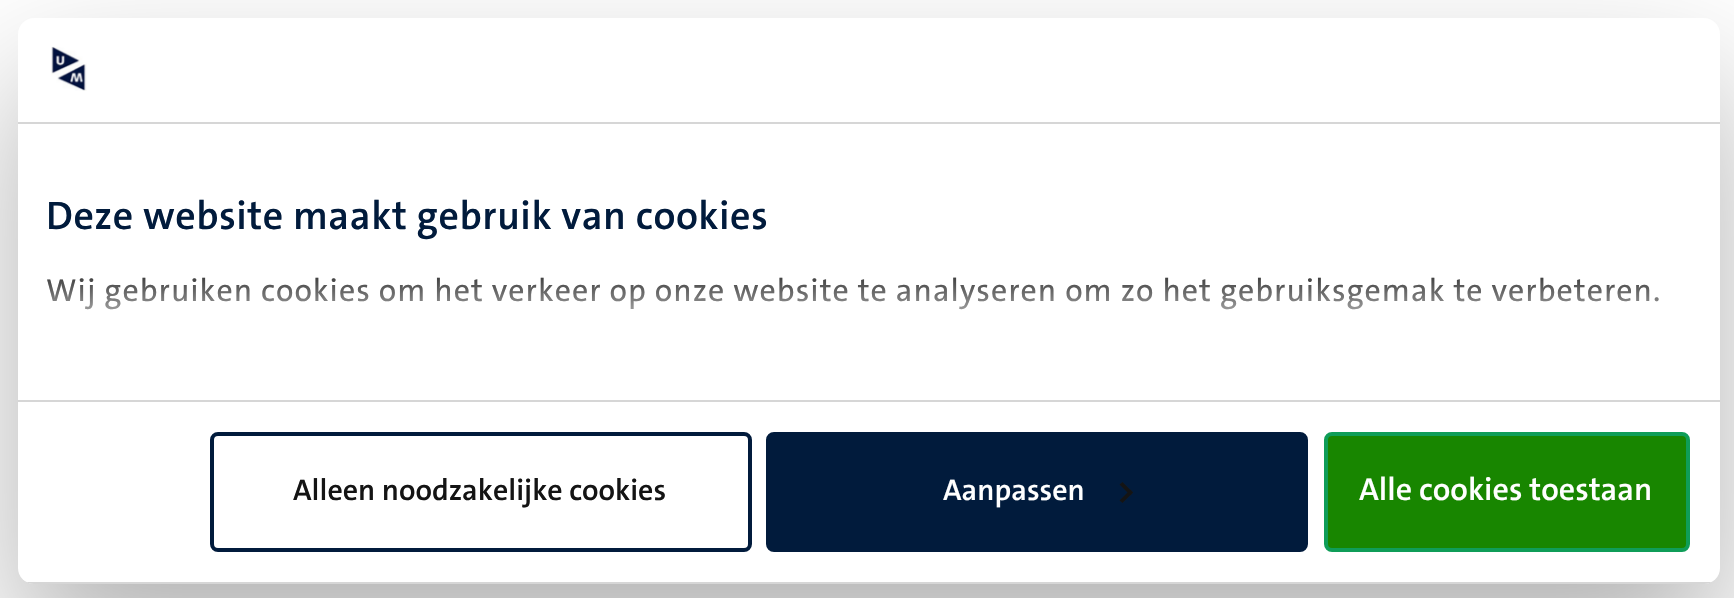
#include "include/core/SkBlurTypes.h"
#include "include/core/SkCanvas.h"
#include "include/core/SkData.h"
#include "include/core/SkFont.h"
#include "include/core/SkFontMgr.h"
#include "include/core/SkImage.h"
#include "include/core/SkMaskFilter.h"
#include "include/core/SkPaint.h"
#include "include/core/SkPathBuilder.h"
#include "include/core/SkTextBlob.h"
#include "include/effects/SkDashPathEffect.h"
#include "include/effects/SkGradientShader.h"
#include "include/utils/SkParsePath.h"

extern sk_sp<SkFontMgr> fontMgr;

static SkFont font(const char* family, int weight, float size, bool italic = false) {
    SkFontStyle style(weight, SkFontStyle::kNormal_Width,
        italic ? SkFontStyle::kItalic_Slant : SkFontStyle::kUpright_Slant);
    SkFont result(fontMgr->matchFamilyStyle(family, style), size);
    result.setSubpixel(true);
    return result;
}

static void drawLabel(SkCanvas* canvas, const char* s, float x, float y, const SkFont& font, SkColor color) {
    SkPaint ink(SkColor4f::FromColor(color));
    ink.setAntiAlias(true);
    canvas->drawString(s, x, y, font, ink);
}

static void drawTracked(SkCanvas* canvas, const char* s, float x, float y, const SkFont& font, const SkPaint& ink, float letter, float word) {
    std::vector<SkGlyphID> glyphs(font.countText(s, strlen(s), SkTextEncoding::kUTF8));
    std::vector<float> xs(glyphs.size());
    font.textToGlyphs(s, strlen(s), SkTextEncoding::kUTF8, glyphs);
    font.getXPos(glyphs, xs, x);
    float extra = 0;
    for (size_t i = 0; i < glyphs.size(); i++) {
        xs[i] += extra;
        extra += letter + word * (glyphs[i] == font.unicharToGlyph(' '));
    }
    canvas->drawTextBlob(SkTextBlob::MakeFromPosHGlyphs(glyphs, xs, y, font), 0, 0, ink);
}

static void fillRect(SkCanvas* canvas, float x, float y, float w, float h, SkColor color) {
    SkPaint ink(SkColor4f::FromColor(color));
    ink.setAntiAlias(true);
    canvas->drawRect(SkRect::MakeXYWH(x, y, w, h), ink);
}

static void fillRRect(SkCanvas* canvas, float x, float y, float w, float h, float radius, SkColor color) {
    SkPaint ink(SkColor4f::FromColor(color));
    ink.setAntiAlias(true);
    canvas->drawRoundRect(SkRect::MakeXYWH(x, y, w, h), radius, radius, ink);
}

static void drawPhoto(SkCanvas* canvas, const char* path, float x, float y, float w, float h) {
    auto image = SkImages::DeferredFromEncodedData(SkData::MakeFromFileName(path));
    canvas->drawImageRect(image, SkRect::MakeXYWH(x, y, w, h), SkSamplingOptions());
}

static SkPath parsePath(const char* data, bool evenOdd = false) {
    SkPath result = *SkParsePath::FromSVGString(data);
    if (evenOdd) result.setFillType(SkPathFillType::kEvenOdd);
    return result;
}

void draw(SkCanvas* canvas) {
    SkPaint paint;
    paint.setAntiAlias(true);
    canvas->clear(0xFFFFFFFF);
    paint.setColor(0x4D000000);
    paint.setMaskFilter(SkMaskFilter::MakeBlur(kNormal_SkBlurStyle, 68));
    canvas->drawRoundRect(SkRect::MakeXYWH(18, 82, 1702, 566), 16, 16, paint);
    paint.setMaskFilter(nullptr);
    fillRRect(canvas, 18, 18, 1702, 566, 16, 0xFFFFFFFF);
    fillRect(canvas, 18, 122, 1702, 2, 0xFFD6D6D6);
    drawPhoto(canvas, "assets/img1.png", 51, 46, 36, 45);
    fillRect(canvas, 18, 400, 1702, 2, 0xFFD6D6D6);
    SkFont font1 = font("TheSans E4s", 600, 40);
    paint.setColor(0xFF011B3C);
    drawTracked(canvas, "Deze website maakt gebruik van cookies", 46, 229, font1, paint, 0.5f, 0);
    SkFont font2 = font("TheSans E4s", 500, 32);
    paint.setColor(0xFF141414);
    drawTracked(canvas, "Wij gebruiken cookies om het verkeer op onze website te analyseren om zo het gebruiksgemak te verbeteren.", 46, 301, font2, paint, 1, 0);
    {
        const SkColor colors[] = {0xFFFFFFFF, 0xCCFFFFFF, 0x00FFFFFF};
        const float stops[] = {0, 0.5f, 1};
        const SkPoint ends[] = {{855, 399}, {855, 261}};
        paint.setShader(SkGradientShader::MakeLinear(ends, colors, stops, 3, SkTileMode::kClamp));
        paint.setAlpha(255);
    }
    canvas->drawRect(SkRect::MakeXYWH(47, 277, 1612, 33), paint);
    canvas->save();
    canvas->clipPath(parsePath("M34 18H1704C1713 18 1720 25 1720 34V568C1720 577 1713 584 1704 584H34C25 584 18 577 18 568V34C18 25 25 18 34 18Z"), true);
    fillRect(canvas, 18, 582, 1702, 2, 0xFFD6D6D6);
    canvas->restore();
    paint.setStroke(true);
    paint.setStrokeWidth(4);
    paint.setShader(nullptr);
    paint.setColor(0xFF011B3C);
    canvas->drawRoundRect(SkRect::MakeXYWH(212, 434, 538, 116), 6, 6, paint);
    SkFont font3 = font("TheSans E4s", 600, 30);
    drawLabel(canvas, "Alleen noodzakelijke cookies", 293, 500, font3, 0xFF141414);
    paint.setStroke(false);
    canvas->drawRoundRect(SkRect::MakeXYWH(768, 434, 538, 116), 6, 6, paint);
    paint.setStroke(true);
    canvas->drawRoundRect(SkRect::MakeXYWH(768, 434, 538, 116), 6, 6, paint);
    drawLabel(canvas, "Aanpassen", 943, 500, font3, 0xFFFFFFFF);
    paint.setStroke(false);
    paint.setColor(0xFF141414);
    canvas->drawPath(parsePath("M1122.5 482L1133 492.5L1130.5 495.5L1119.5 484.5Z"), paint);
    canvas->drawPath(parsePath("M1130.5 489.5L1133 492.5L1122.5 503L1119.5 500.5Z"), paint);
    paint.setColor(0xFF188600);
    canvas->drawRoundRect(SkRect::MakeXYWH(1326, 434, 362, 116), 6, 6, paint);
    paint.setStroke(true);
    paint.setColor(0xFF0F9D58);
    canvas->drawRoundRect(SkRect::MakeXYWH(1326, 434, 362, 116), 6, 6, paint);
    SkFont font4 = font("TheSans E4s", 600, 32);
    drawLabel(canvas, "Alle cookies toestaan", 1359, 500, font4, 0xFFFFFFFF);
}
